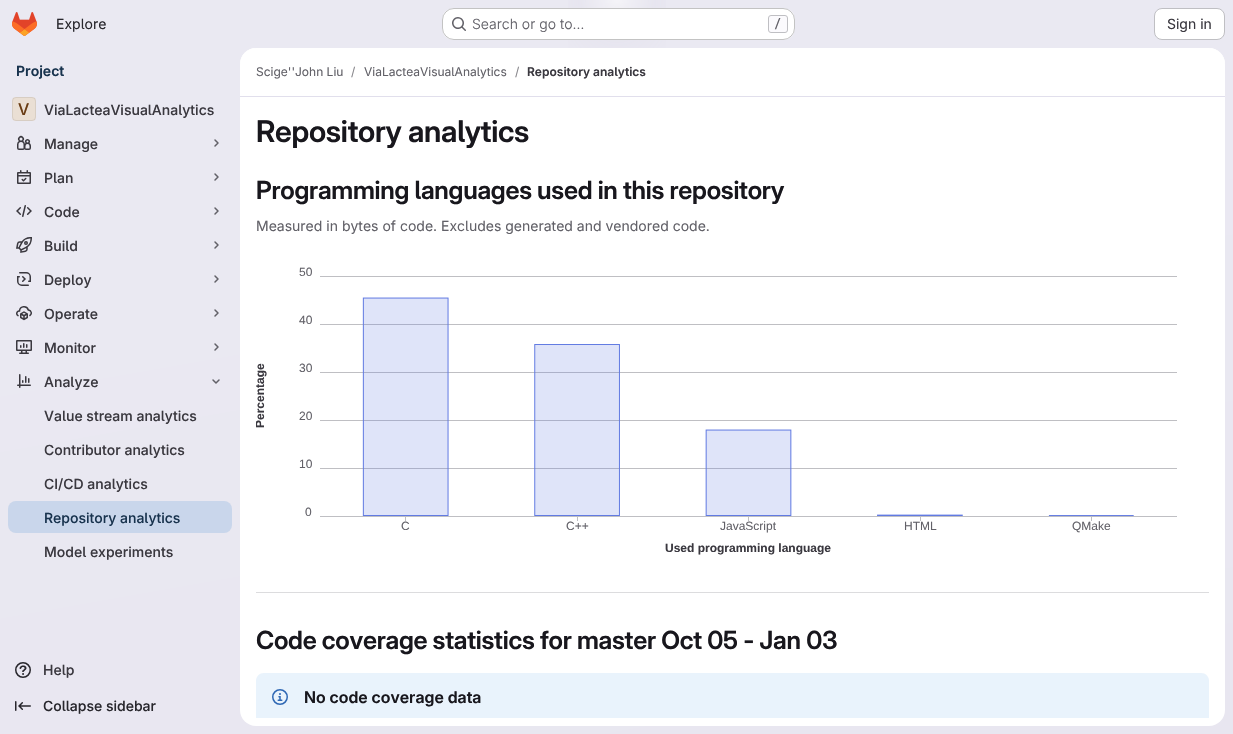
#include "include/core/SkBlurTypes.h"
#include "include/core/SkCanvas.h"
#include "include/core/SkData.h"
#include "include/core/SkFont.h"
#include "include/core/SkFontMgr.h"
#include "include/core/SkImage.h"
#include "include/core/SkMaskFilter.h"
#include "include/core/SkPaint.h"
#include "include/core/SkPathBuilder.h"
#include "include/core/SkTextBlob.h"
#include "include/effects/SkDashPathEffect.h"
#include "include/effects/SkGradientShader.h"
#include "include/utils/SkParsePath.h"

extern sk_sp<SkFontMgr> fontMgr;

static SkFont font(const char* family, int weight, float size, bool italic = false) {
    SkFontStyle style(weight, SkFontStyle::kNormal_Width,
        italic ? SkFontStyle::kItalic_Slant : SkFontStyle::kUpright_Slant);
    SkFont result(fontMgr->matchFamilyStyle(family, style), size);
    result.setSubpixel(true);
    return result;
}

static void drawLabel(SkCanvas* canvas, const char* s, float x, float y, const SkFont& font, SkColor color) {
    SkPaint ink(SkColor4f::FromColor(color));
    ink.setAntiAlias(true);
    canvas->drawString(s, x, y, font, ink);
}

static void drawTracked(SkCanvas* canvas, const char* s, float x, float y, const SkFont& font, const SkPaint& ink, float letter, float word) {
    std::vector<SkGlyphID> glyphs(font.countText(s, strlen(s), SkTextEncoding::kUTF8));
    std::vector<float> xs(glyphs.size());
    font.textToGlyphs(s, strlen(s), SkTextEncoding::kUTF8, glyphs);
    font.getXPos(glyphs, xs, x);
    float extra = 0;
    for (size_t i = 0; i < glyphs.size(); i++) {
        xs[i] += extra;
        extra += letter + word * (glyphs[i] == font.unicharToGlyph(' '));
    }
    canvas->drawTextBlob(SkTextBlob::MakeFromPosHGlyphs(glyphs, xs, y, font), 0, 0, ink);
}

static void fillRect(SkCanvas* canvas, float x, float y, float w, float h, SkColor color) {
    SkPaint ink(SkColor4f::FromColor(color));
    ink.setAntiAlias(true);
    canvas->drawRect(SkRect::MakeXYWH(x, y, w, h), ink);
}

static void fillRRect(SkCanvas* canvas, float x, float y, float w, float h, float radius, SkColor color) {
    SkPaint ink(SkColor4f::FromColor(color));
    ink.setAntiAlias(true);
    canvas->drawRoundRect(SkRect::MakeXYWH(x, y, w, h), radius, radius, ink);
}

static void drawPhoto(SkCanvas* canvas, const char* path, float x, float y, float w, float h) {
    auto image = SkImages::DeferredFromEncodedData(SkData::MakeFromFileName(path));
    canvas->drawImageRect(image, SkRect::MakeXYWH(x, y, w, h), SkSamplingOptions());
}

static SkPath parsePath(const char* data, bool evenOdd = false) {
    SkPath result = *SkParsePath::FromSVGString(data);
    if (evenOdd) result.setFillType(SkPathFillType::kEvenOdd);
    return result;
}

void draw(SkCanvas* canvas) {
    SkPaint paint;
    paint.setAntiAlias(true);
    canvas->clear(0xFFFFFFFF);
    {
        const SkColor colors[] = {0xFFE8E6F0, 0xFFEAE9F2};
        const float stops[] = {0, 0.7f};
        const SkPoint ends[] = {{698, 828}, {535, -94}};
        paint.setShader(SkGradientShader::MakeLinear(ends, colors, stops, 2, SkTileMode::kClamp));
        paint.setAlpha(255);
    }
    canvas->drawRect(SkRect::MakeXYWH(0, 0, 1233, 734), paint);
    {
        const SkColor colors[] = {0xFFE4E2ED, 0x00E4E2ED};
        const float stops[] = {0, 0.11f};
        SkMatrix m = SkMatrix::Translate(617, 0).preScale(617, 734);
        paint.setShader(SkGradientShader::MakeRadial({0, 0}, 1, colors, stops, 2, SkTileMode::kClamp, 0, &m));
        paint.setAlpha(255);
    }
    canvas->drawRect(SkRect::MakeXYWH(568, 0, 98, 48), paint);
    {
        const SkColor colors[] = {0xFFE4E2EC, 0x00E4E2EC};
        const float stops[] = {0, 0.08f};
        SkMatrix m = SkMatrix::Translate(617, 0).preScale(617, 734);
        paint.setShader(SkGradientShader::MakeRadial({0, 0}, 1, colors, stops, 2, SkTileMode::kClamp, 0, &m));
        paint.setAlpha(255);
    }
    canvas->drawRect(SkRect::MakeXYWH(605, 3, 24, 19), paint);
    {
        const SkColor colors[] = {0x99FFFFFF, 0x00FFFFFF};
        const float stops[] = {0, 0.04f};
        paint.setShader(SkGradientShader::MakeRadial({617, 0}, 959, colors, stops, 2, SkTileMode::kClamp));
        paint.setAlpha(255);
    }
    canvas->drawRect(SkRect::MakeXYWH(580, 0, 74, 8), paint);
    drawPhoto(canvas, "assets/img1.png", 12, 12, 25, 24);
    SkFont font1 = font("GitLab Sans", 400, 14);
    drawLabel(canvas, "Explore", 56, 29, font1, 0xFF28272D);
    fillRRect(canvas, 442, 8, 353, 32, 12, 0xFFFFFFFF);
    paint.setStroke(true);
    paint.setStrokeWidth(1);
    paint.setShader(nullptr);
    paint.setColor(0x3D050506);
    canvas->drawRoundRect(SkRect::MakeXYWH(442.5f, 8.5f, 352, 31), 11.5f, 11.5f, paint);
    drawPhoto(canvas, "assets/img2.png", 452, 17, 14, 14);
    SkFont font2 = font("GitLab Sans", 300, 14);
    drawLabel(canvas, "Search or go to…", 472, 29, font2, 0xFF626168);
    paint.setStroke(false);
    paint.setColor(0xFFFBFAFD);
    canvas->drawRoundRect(SkRect::MakeXYWH(768.5f, 15.5f, 19, 17), 2.5f, 2.5f, paint);
    paint.setStroke(true);
    paint.setColor(0xFFBFBFC3);
    canvas->drawRoundRect(SkRect::MakeXYWH(768.5f, 15.5f, 19, 17), 2.5f, 2.5f, paint);
    SkFont font3 = font("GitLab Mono", 500, 12);
    drawLabel(canvas, "/", 774, 28, font3, 0xFF626168);
    paint.setStroke(false);
    paint.setColor(0xFFFFFFFF);
    canvas->drawRoundRect(SkRect::MakeXYWH(1154.5f, 8.5f, 70, 31), 7.5f, 7.5f, paint);
    paint.setStroke(true);
    paint.setColor(0xFFBFBFC3);
    canvas->drawRoundRect(SkRect::MakeXYWH(1154.5f, 8.5f, 70, 31), 7.5f, 7.5f, paint);
    drawLabel(canvas, "Sign in", 1167, 29, font1, 0xFF3A383F);
    SkFont font4 = font("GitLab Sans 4", 600, 14);
    drawLabel(canvas, "Project", 16, 76, font4, 0xFF18334E);
    fillRRect(canvas, 12, 97, 24, 24, 4, 0xFFEADFD4);
    paint.setColor(0x14050506);
    canvas->drawRoundRect(SkRect::MakeXYWH(12.5f, 97.5f, 23, 23), 3.5f, 3.5f, paint);
    SkFont font5 = font("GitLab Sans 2", 500, 16);
    drawLabel(canvas, "V", 18, 115, font5, 0xFF693C14);
    SkFont font6 = font("GitLab Sans", 500, 14);
    drawLabel(canvas, "ViaLacteaVisualAnalytics", 44, 115, font6, 0xFF3A383F);
    drawPhoto(canvas, "assets/img3.png", 17, 135, 14, 15);
    drawLabel(canvas, "Manage", 44, 149, font6, 0xFF3A383F);
    paint.setStrokeWidth(1.5f);
    paint.setStrokeCap(SkPaint::kRound_Cap);
    paint.setStrokeJoin(SkPaint::kRound_Join);
    paint.setColor(0xFF626168);
    canvas->drawPath(parsePath("M215 140L218 143L215 146"), paint);
    drawPhoto(canvas, "assets/img4.png", 17, 170, 14, 14);
    drawLabel(canvas, "Plan", 44, 183, font6, 0xFF3A383F);
    canvas->drawPath(parsePath("M215 174L218 177L215 180"), paint);
    drawPhoto(canvas, "assets/img5.png", 16, 205, 16, 12);
    drawLabel(canvas, "Code", 44, 217, font6, 0xFF3A383F);
    canvas->drawPath(parsePath("M215 208L218 211L215 214"), paint);
    drawPhoto(canvas, "assets/img6.png", 16, 237, 16, 16);
    drawLabel(canvas, "Build", 44, 251, font6, 0xFF3A383F);
    canvas->drawPath(parsePath("M215 242L218 245L215 248"), paint);
    drawPhoto(canvas, "assets/img7.png", 17, 272, 14, 14);
    drawLabel(canvas, "Deploy", 44, 285, font6, 0xFF3A383F);
    canvas->drawPath(parsePath("M215 276L218 279L215 282"), paint);
    drawPhoto(canvas, "assets/img8.png", 16, 306, 16, 15);
    drawLabel(canvas, "Operate", 44, 319, font6, 0xFF3A383F);
    canvas->drawPath(parsePath("M215 310L218 313L215 316"), paint);
    drawPhoto(canvas, "assets/img9.png", 16, 340, 16, 14);
    drawLabel(canvas, "Monitor", 44, 353, font6, 0xFF3A383F);
    canvas->drawPath(parsePath("M215 344L218 347L215 350"), paint);
    drawPhoto(canvas, "assets/img10.png", 17, 374, 14, 14);
    drawLabel(canvas, "Analyze", 44, 387, font6, 0xFF3A383F);
    canvas->drawPath(parsePath("M219 380L216 383L213 380"), paint);
    drawLabel(canvas, "Value stream analytics", 44, 421, font6, 0xFF3A383F);
    drawLabel(canvas, "Contributor analytics", 44, 455, font6, 0xFF3A383F);
    drawLabel(canvas, "CI/CD analytics", 44, 489, font6, 0xFF3A383F);
    fillRRect(canvas, 8, 501, 224, 32, 8, 0xFFC9D6EB);
    drawLabel(canvas, "Repository analytics", 44, 523, font6, 0xFF18334E);
    drawLabel(canvas, "Model experiments", 44, 557, font6, 0xFF3A383F);
    drawPhoto(canvas, "assets/img11.png", 15, 662, 16, 16);
    drawLabel(canvas, "Help", 43, 675, font6, 0xFF3A383F);
    drawPhoto(canvas, "assets/img12.png", 15, 701, 16, 10);
    drawLabel(canvas, "Collapse sidebar", 43, 711, font6, 0xFF28272D);
    fillRRect(canvas, 240, 48, 985, 678, 16, 0xFFFFFFFF);
    paint.setStroke(false);
    paint.setColor(0xFFFFFFFF);
    canvas->drawPath(parsePath("M256 48H1209C1218 48 1225 55 1225 64V97H240V64C240 55 247 48 256 48Z"), paint);
    fillRect(canvas, 240, 96, 985, 1, 0xFFE1DFEC);
    SkFont font7 = font("GitLab Sans", 400, 12);
    drawLabel(canvas, "Scige''John Liu", 256, 76, font7, 0xFF626168);
    drawLabel(canvas, "/", 351, 76, font7, 0xFF89888D);
    drawLabel(canvas, "ViaLacteaVisualAnalytics", 364, 76, font7, 0xFF626168);
    drawLabel(canvas, "/", 515, 76, font7, 0xFF89888D);
    SkFont font8 = font("GitLab Sans 4", 600, 12);
    drawLabel(canvas, "Repository analytics", 527, 76, font8, 0xFF3A383F);
    SkFont font9 = font("GitLab Sans", 600, 30);
    paint.setColor(0xFF18171D);
    drawTracked(canvas, "Repository analytics", 256, 142, font9, paint, -0.25f, 0);
    SkFont font10 = font("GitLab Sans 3", 600, 25);
    drawTracked(canvas, "Programming languages used in this repository", 256, 199, font10, paint, -0.25f, 0);
    drawLabel(canvas, "Measured in bytes of code. Excludes generated and vendored code.", 256, 231, font1, 0xFF626168);
    drawPhoto(canvas, "assets/img13.png", 320, 276, 857, 245);
    SkFont font11 = font("Liberation Sans", 400, 12);
    drawLabel(canvas, "50", 299, 276, font11, 0xFF626168);
    drawLabel(canvas, "40", 299, 324, font11, 0xFF626168);
    canvas->save();
    canvas->clipRect(SkRect::MakeXYWH(256, 260, 953, 300));
    SkFont font12 = font("Liberation Sans", 700, 12);
    canvas->save();
    canvas->rotate(-90, 264, 428);
    drawLabel(canvas, "Percentage", 264, 428, font12, 0xFF3A383F);
    canvas->restore();
    canvas->restore();
    drawLabel(canvas, "30", 299, 372, font11, 0xFF626168);
    drawLabel(canvas, "20", 299, 420, font11, 0xFF626168);
    drawLabel(canvas, "10", 299, 468, font11, 0xFF626168);
    drawLabel(canvas, "0", 305, 516, font11, 0xFF626168);
    drawLabel(canvas, "C", 401, 530, font11, 0xFF626168);
    drawLabel(canvas, "C++", 566, 530, font11, 0xFF626168);
    drawLabel(canvas, "JavaScript", 720, 530, font11, 0xFF626168);
    drawLabel(canvas, "HTML", 904, 530, font11, 0xFF626168);
    drawLabel(canvas, "QMake", 1072, 530, font11, 0xFF626168);
    drawLabel(canvas, "Used programming language", 665, 552, font12, 0xFF3A383F);
    fillRect(canvas, 256, 592, 953, 1, 0xFFDCDCDE);
    drawTracked(canvas, "Code coverage statistics for master Oct 05 - Jan 03", 256, 649, font10, paint, -0.25f, 0);
    paint.setColor(0xFFE9F3FC);
    canvas->drawPath(parsePath("M264 673H1201C1205.5 673 1209 676.5 1209 681V718H256V681C256 676.5 259.5 673 264 673Z"), paint);
    drawPhoto(canvas, "assets/img14.png", 272, 689, 16, 16);
    SkFont font13 = font("GitLab Sans 2", 600, 16);
    drawLabel(canvas, "No code coverage data", 304, 703, font13, 0xFF18171D);
}
